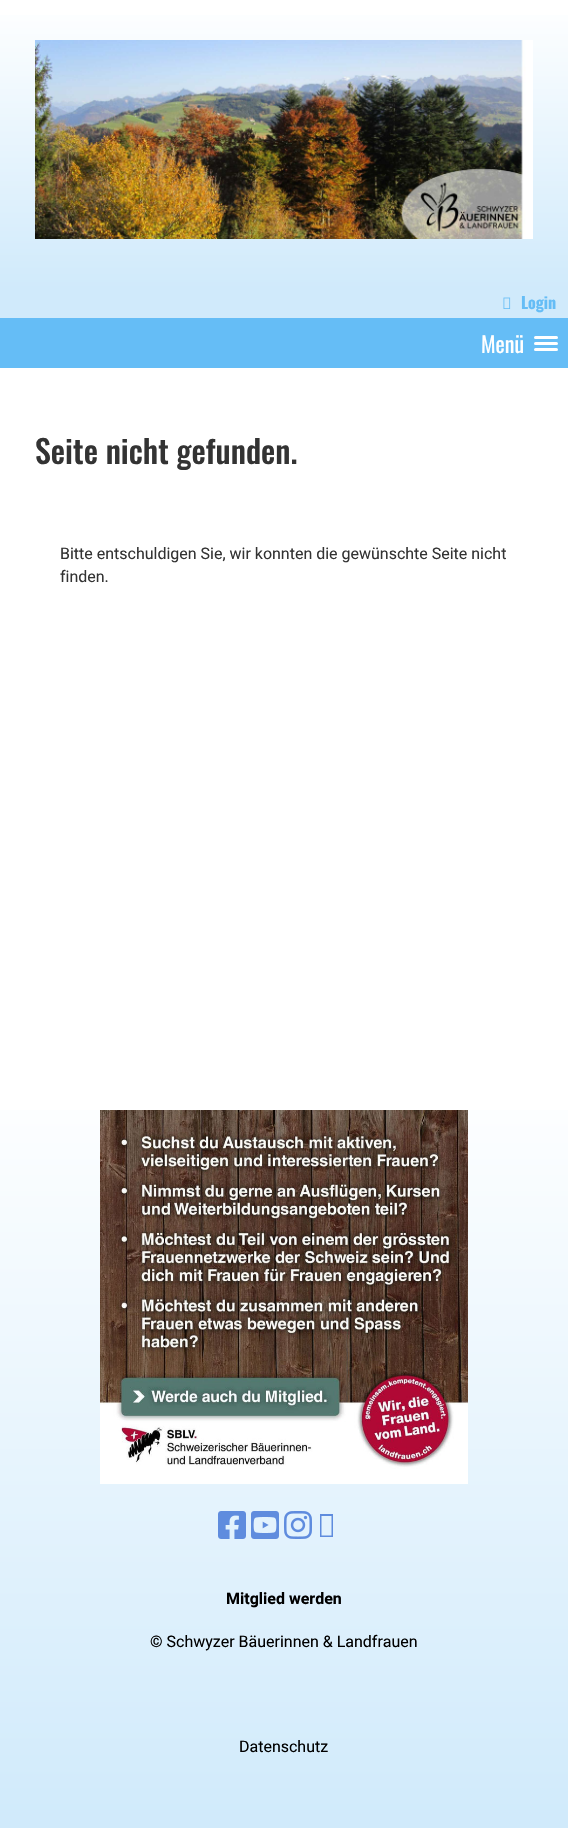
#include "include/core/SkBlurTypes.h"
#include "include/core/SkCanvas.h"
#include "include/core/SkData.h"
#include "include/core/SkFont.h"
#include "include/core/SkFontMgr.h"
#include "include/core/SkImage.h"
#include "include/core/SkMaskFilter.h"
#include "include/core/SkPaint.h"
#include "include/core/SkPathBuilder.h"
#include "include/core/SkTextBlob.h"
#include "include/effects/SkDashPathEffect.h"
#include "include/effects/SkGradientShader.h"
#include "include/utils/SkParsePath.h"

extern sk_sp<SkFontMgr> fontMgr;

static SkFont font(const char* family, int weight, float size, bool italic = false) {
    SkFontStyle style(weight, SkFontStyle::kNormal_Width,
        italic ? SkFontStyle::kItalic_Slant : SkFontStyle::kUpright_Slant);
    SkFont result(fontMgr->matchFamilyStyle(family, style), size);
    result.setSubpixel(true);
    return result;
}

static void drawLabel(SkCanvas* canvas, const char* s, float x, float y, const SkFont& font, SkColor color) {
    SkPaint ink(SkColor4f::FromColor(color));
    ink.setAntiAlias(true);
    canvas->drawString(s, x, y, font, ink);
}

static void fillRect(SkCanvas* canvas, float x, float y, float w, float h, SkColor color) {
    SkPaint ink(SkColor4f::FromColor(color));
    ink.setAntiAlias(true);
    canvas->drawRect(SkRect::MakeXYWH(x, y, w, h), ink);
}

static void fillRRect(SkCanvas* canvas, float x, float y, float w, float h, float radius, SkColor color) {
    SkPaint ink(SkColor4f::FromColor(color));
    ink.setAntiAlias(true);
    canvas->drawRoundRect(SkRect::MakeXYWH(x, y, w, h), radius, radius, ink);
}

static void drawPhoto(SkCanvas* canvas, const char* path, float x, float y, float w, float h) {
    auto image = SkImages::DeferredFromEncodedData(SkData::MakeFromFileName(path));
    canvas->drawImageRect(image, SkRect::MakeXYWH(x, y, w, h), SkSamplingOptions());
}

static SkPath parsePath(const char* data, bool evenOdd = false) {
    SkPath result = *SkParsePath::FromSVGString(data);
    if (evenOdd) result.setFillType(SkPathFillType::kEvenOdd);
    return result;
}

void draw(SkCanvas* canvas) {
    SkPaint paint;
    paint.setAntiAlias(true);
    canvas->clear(0xFFFFFFFF);
    {
        const SkColor colors[] = {0xFFFFFFFF, 0xFFD0EAFB};
        const float stops[] = {0, 1};
        const SkPoint ends[] = {{284, 0}, {284, 289}};
        paint.setShader(SkGradientShader::MakeLinear(ends, colors, stops, 2, SkTileMode::kClamp));
        paint.setAlpha(255);
    }
    canvas->drawRect(SkRect::MakeXYWH(0, 15, 568, 274), paint);
    drawPhoto(canvas, "assets/img1.png", 35, 40, 498, 199);
    fillRect(canvas, 0, 289, 568, 29, 0xFFD0EAFB);
    drawPhoto(canvas, "assets/img2.png", 503, 297, 8, 12);
    SkFont font1 = font("Oswald", 700, 16);
    drawLabel(canvas, "Login", 521, 309, font1, 0xFF65BDF6);
    fillRect(canvas, 0, 318, 568, 50, 0xFF65BDF6);
    SkFont font2 = font("Oswald", 400, 22);
    drawLabel(canvas, "Menü", 481, 353, font2, 0xFFFFFFFF);
    fillRRect(canvas, 534, 336, 24, 3, 1.5f, 0xFFFFFFFF);
    fillRRect(canvas, 534, 342, 24, 3, 1.5f, 0xFFFFFFFF);
    fillRRect(canvas, 534, 348, 24, 3, 1.5f, 0xFFFFFFFF);
    SkFont font3 = font("Oswald", 500, 32);
    drawLabel(canvas, "Seite nicht gefunden.", 35, 464, font3, 0xFF333333);
    SkFont font4 = font("Roboto", 400, 16);
    drawLabel(canvas, "Bitte entschuldigen Sie, wir konnten die gewünschte Seite nicht", 60, 559, font4, 0xFF333333);
    drawLabel(canvas, "finden.", 60, 582, font4, 0xFF333333);
    {
        const SkColor colors[] = {0xFFFFFFFF, 0xFFD0EAFB};
        const float stops[] = {0, 1};
        const SkPoint ends[] = {{284, 1070}, {284, 1828}};
        paint.setShader(SkGradientShader::MakeLinear(ends, colors, stops, 2, SkTileMode::kClamp));
        paint.setAlpha(255);
    }
    canvas->drawRect(SkRect::MakeXYWH(0, 1110, 568, 718), paint);
    drawPhoto(canvas, "assets/img3.png", 100, 1110, 368, 374);
    drawPhoto(canvas, "assets/img4.png", 218, 1511, 28, 28);
    drawPhoto(canvas, "assets/img5.png", 251, 1511, 28, 28);
    drawPhoto(canvas, "assets/img6.png", 284, 1511, 28, 28);
    paint.setShader(nullptr);
    paint.setColor(0xFF5F8CDE);
    canvas->drawPath(parsePath("M320 1537V1514H333V1537ZM321.5 1535.5H331.5V1516H321.5Z"), paint);
    SkFont font5 = font("Roboto", 700, 16);
    drawLabel(canvas, "Mitglied werden", 226, 1604, font5, 0xFF000000);
    drawLabel(canvas, "© Schwyzer Bäuerinnen & Landfrauen", 150, 1647, font4, 0xFF000000);
    drawLabel(canvas, "Datenschutz", 239, 1752, font4, 0xFF000000);
}
